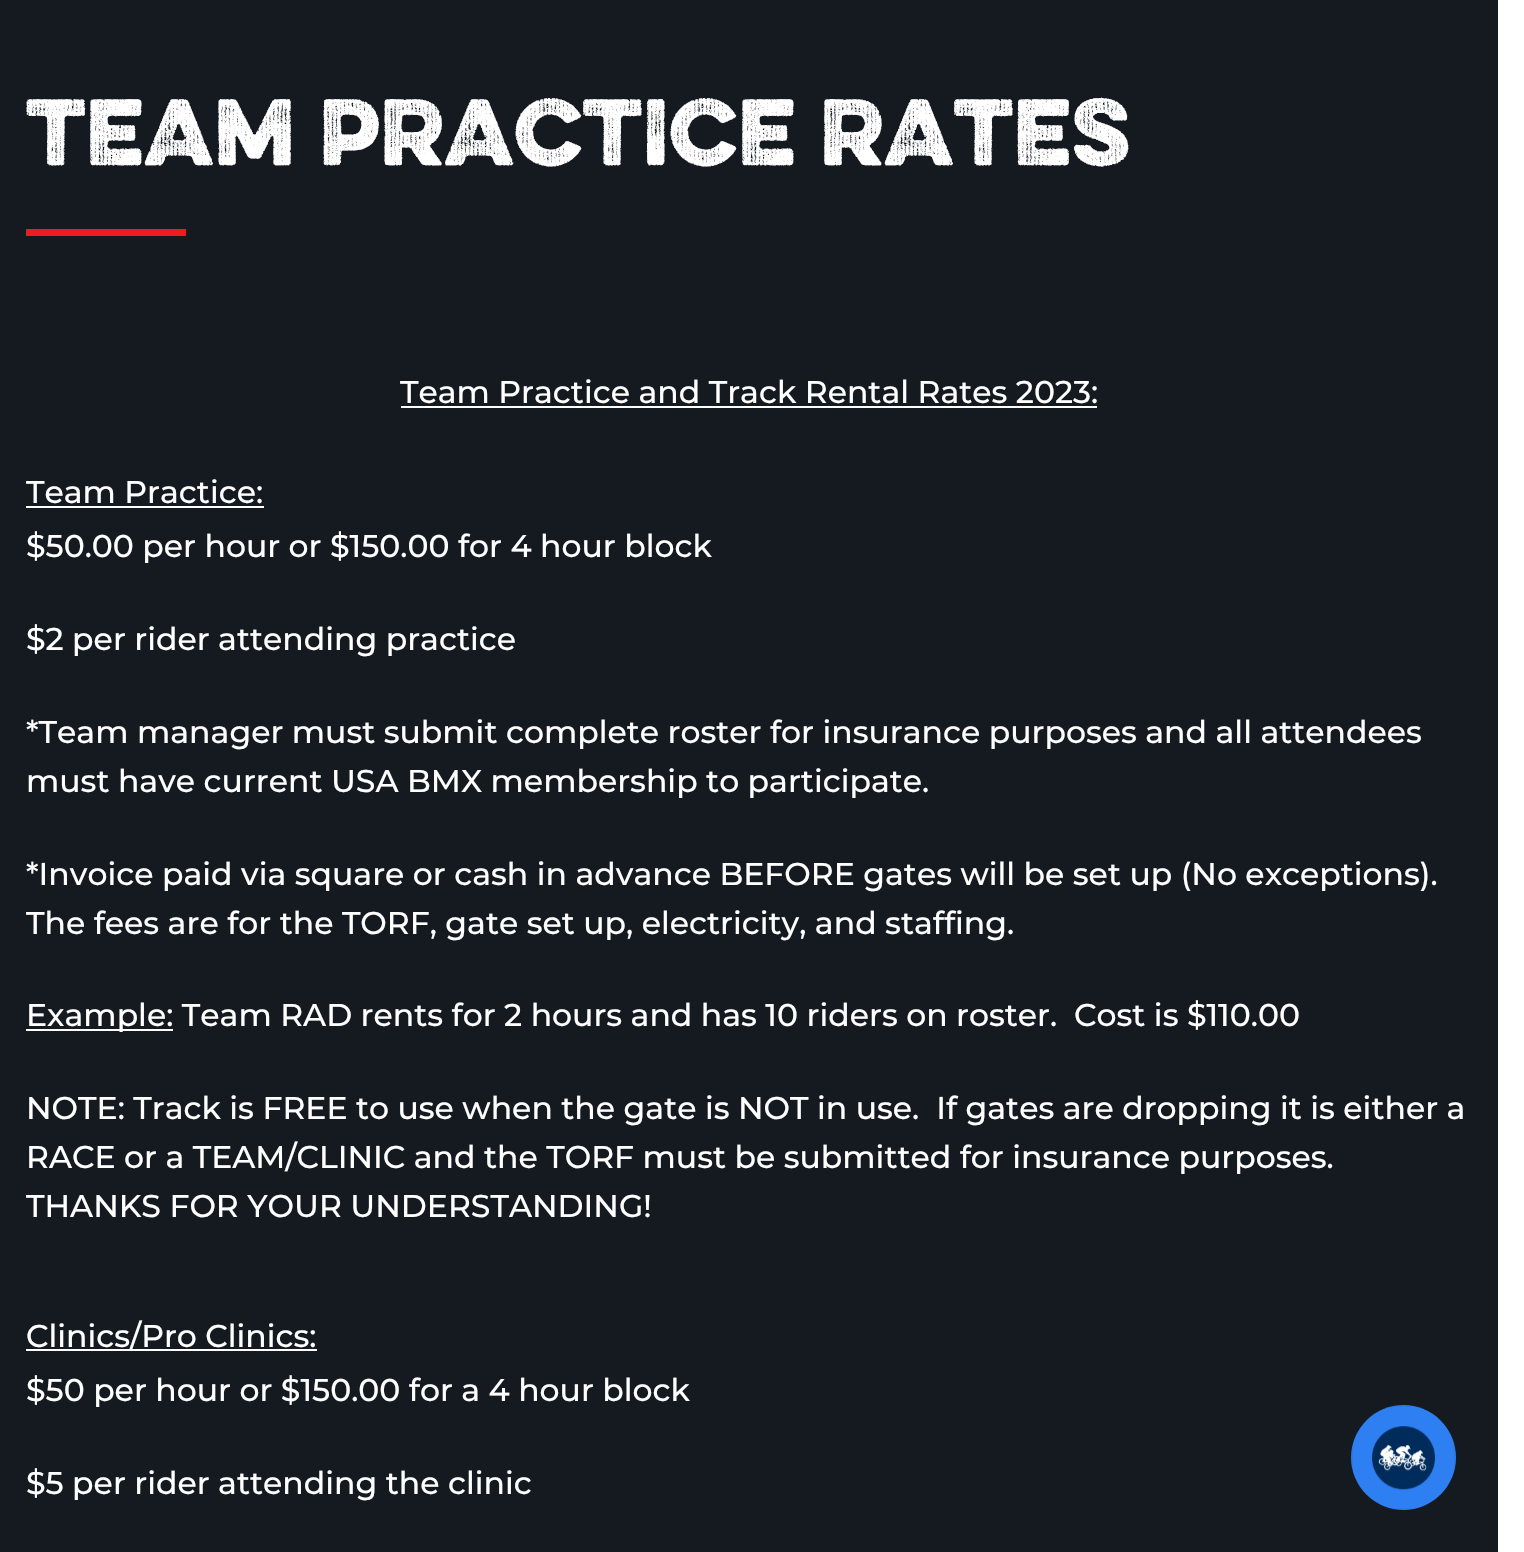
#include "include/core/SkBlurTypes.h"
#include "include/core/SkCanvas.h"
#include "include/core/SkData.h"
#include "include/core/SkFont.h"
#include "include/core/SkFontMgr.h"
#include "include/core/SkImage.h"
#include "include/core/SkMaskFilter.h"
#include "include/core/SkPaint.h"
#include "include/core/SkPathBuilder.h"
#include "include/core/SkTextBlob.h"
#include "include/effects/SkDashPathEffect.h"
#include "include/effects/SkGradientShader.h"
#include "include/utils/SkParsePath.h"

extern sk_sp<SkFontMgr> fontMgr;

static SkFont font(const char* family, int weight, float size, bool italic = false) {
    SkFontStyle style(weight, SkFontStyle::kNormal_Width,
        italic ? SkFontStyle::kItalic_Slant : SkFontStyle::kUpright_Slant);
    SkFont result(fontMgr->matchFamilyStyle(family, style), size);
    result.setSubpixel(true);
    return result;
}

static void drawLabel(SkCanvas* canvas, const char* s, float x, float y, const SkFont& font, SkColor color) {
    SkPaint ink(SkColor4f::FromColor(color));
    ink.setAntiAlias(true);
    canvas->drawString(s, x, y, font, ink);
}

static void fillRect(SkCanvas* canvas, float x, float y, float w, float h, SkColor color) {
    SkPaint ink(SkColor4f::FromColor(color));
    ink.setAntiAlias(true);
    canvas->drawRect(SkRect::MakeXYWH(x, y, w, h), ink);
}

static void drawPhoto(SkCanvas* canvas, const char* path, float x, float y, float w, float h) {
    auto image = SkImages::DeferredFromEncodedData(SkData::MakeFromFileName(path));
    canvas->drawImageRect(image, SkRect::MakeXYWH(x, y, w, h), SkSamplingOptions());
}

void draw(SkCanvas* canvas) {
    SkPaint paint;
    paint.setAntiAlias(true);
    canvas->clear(0xFFFFFFFF);
    fillRect(canvas, 0, 0, 1498, 1552, 0xFF151A21);
    SkFont font1 = font("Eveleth", 400, 84);
    drawLabel(canvas, "TEAM PRACTICE RATES", 26, 165, font1, 0xFFFFFFFF);
    fillRect(canvas, 26, 229, 160, 7, 0xFFED1C23);
    SkFont font2 = font("Montserrat", 500, 31.5f);
    drawLabel(canvas, "Team Practice and Track Rental Rates 2023:", 400, 403, font2, 0xFFFFFFFF);
    fillRect(canvas, 401, 406, 696, 2, 0xFFFFFFFF);
    drawLabel(canvas, "Team Practice:", 26, 503, font2, 0xFFFFFFFF);
    fillRect(canvas, 26, 506, 238, 2, 0xFFFFFFFF);
    drawLabel(canvas, "$50.00 per hour or $150.00 for 4 hour block", 26, 557, font2, 0xFFFFFFFF);
    drawLabel(canvas, "$2 per rider attending practice", 26, 650, font2, 0xFFFFFFFF);
    drawLabel(canvas, "*Team manager must submit complete roster for insurance purposes and all attendees", 26, 743, font2, 0xFFFFFFFF);
    drawLabel(canvas, "must have current USA BMX membership to participate.", 26, 792, font2, 0xFFFFFFFF);
    drawLabel(canvas, "*Invoice paid via square or cash in advance BEFORE gates will be set up (No exceptions).", 26, 885, font2, 0xFFFFFFFF);
    drawLabel(canvas, "The fees are for the TORF, gate set up, electricity, and staffing.", 26, 934, font2, 0xFFFFFFFF);
    fillRect(canvas, 26, 1029, 147, 2, 0xFFFFFFFF);
    drawLabel(canvas, "Example: Team RAD rents for 2 hours and has 10 riders on roster.  Cost is $110.00", 26, 1026, font2, 0xFFFFFFFF);
    drawLabel(canvas, "NOTE: Track is FREE to use when the gate is NOT in use.  If gates are dropping it is either a", 26, 1119, font2, 0xFFFFFFFF);
    drawLabel(canvas, "RACE or a TEAM/CLINIC and the TORF must be submitted for insurance purposes.", 26, 1168, font2, 0xFFFFFFFF);
    drawLabel(canvas, "THANKS FOR YOUR UNDERSTANDING!", 26, 1217, font2, 0xFFFFFFFF);
    fillRect(canvas, 26, 1349, 291, 2, 0xFFFFFFFF);
    drawLabel(canvas, "Clinics/Pro Clinics:", 26, 1347, font2, 0xFFFFFFFF);
    drawLabel(canvas, "$50 per hour or $150.00 for a 4 hour block", 26, 1401, font2, 0xFFFFFFFF);
    drawLabel(canvas, "$5 per rider attending the clinic", 26, 1494, font2, 0xFFFFFFFF);
    paint.setColor(0xFF2E7FF1);
    canvas->drawCircle(1403.5f, 1457.5f, 52.5f, paint);
    paint.setStroke(true);
    paint.setStrokeWidth(2);
    paint.setColor(0x0A000000);
    canvas->drawRect(SkRect::MakeXYWH(1352, 1406, 103, 103), paint);
    drawPhoto(canvas, "assets/img1.png", 1372, 1426, 63, 64);
}
